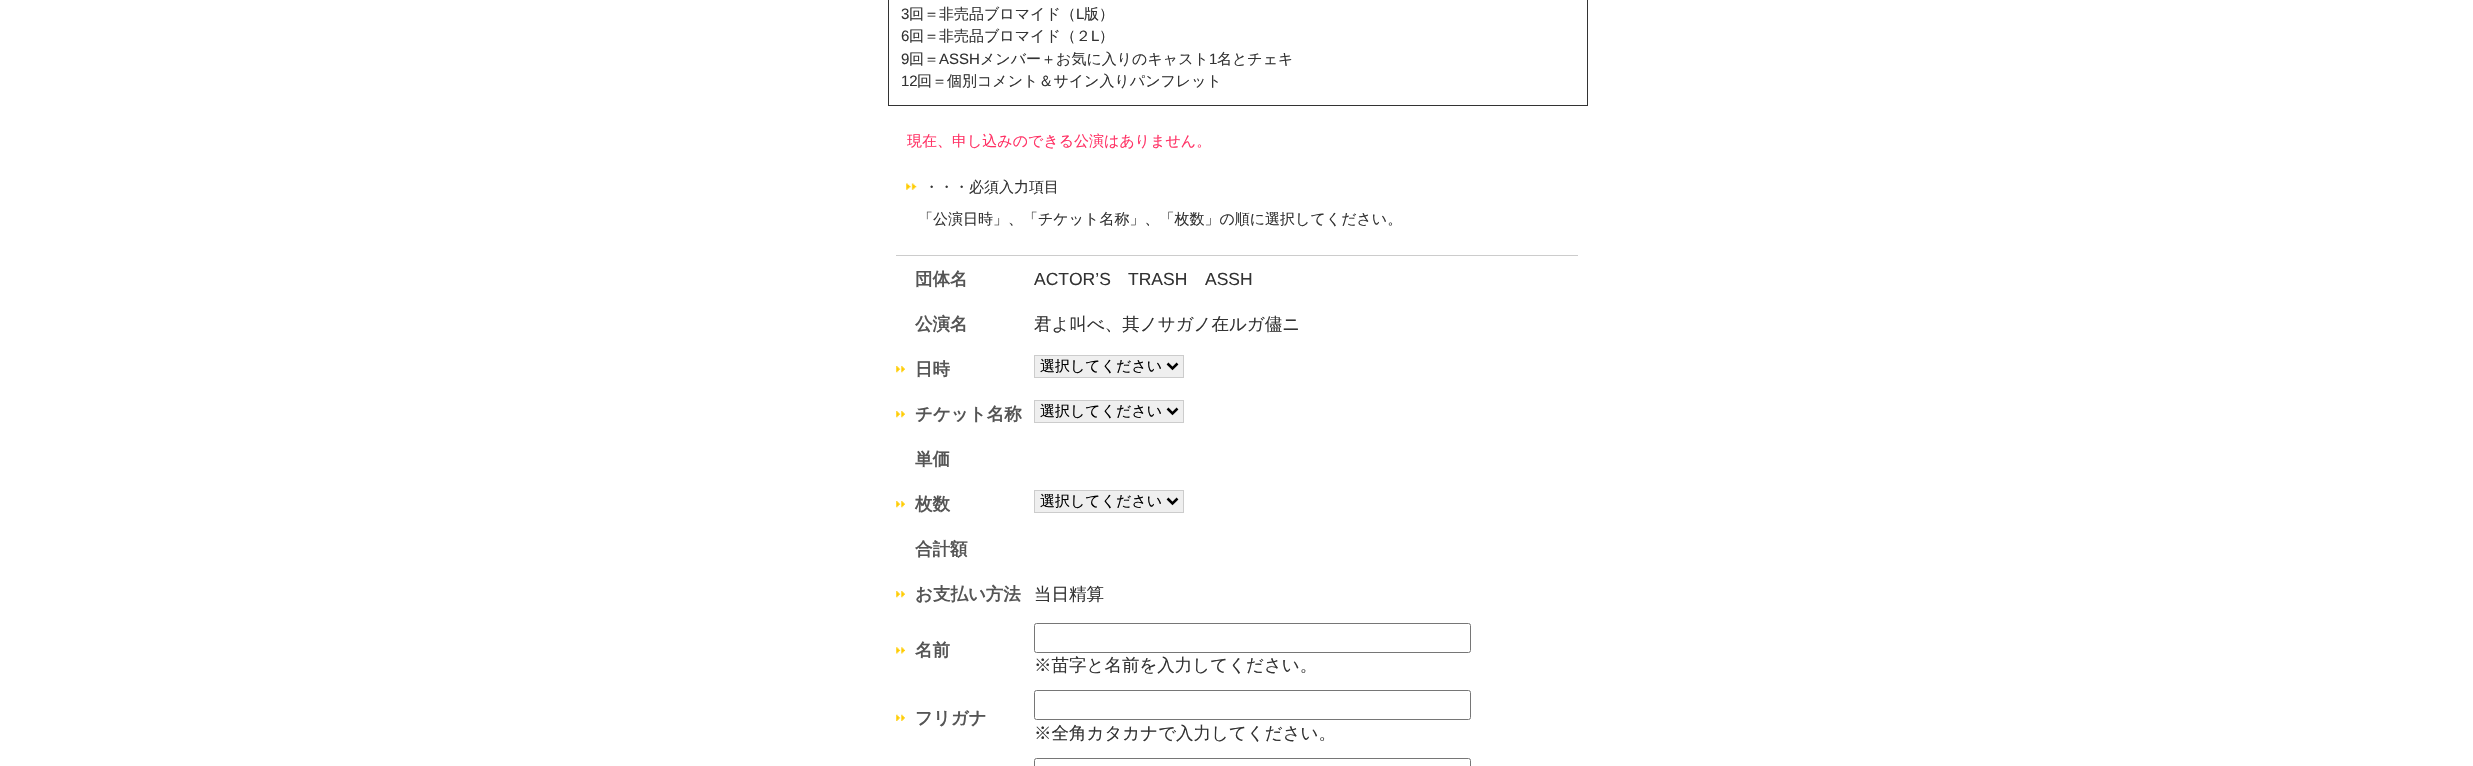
#include "include/core/SkBlurTypes.h"
#include "include/core/SkCanvas.h"
#include "include/core/SkData.h"
#include "include/core/SkFont.h"
#include "include/core/SkFontMgr.h"
#include "include/core/SkImage.h"
#include "include/core/SkMaskFilter.h"
#include "include/core/SkPaint.h"
#include "include/core/SkPathBuilder.h"
#include "include/core/SkTextBlob.h"
#include "include/effects/SkDashPathEffect.h"
#include "include/effects/SkGradientShader.h"
#include "include/utils/SkParsePath.h"

extern sk_sp<SkFontMgr> fontMgr;

static SkFont font(const char* family, int weight, float size, bool italic = false) {
    SkFontStyle style(weight, SkFontStyle::kNormal_Width,
        italic ? SkFontStyle::kItalic_Slant : SkFontStyle::kUpright_Slant);
    SkFont result(fontMgr->matchFamilyStyle(family, style), size);
    result.setSubpixel(true);
    return result;
}

static void drawLabel(SkCanvas* canvas, const char* s, float x, float y, const SkFont& font, SkColor color) {
    SkPaint ink(SkColor4f::FromColor(color));
    ink.setAntiAlias(true);
    canvas->drawString(s, x, y, font, ink);
}

static void fillRect(SkCanvas* canvas, float x, float y, float w, float h, SkColor color) {
    SkPaint ink(SkColor4f::FromColor(color));
    ink.setAntiAlias(true);
    canvas->drawRect(SkRect::MakeXYWH(x, y, w, h), ink);
}

static void drawPhoto(SkCanvas* canvas, const char* path, float x, float y, float w, float h) {
    auto image = SkImages::DeferredFromEncodedData(SkData::MakeFromFileName(path));
    canvas->drawImageRect(image, SkRect::MakeXYWH(x, y, w, h), SkSamplingOptions());
}

static SkPath parsePath(const char* data, bool evenOdd = false) {
    SkPath result = *SkParsePath::FromSVGString(data);
    if (evenOdd) result.setFillType(SkPathFillType::kEvenOdd);
    return result;
}

void draw(SkCanvas* canvas) {
    SkPaint paint;
    paint.setAntiAlias(true);
    canvas->clear(0xFFFFFFFF);
    paint.setStroke(true);
    paint.setStrokeWidth(1);
    paint.setColor(0xFF333333);
    canvas->drawRect(SkRect::MakeXYWH(888.5f, -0.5f, 699, 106), paint);
    SkFont font1 = font("Liberation Sans", 400, 15);
    drawLabel(canvas, "3", 901, 19, font1, 0xFF333333);
    SkFont font2 = font("WenQuanYi Zen Hei", 500, 15);
    drawLabel(canvas, "回＝非売品ブロマイド（", 909, 19, font2, 0xFF333333);
    drawLabel(canvas, "L", 1076, 19, font1, 0xFF333333);
    drawLabel(canvas, "版）", 1084, 19, font2, 0xFF333333);
    drawLabel(canvas, "6", 901, 41, font1, 0xFF333333);
    drawLabel(canvas, "回＝非売品ブロマイド（２", 909, 41, font2, 0xFF333333);
    drawLabel(canvas, "L", 1091, 41, font1, 0xFF333333);
    drawLabel(canvas, "）", 1099, 41, font2, 0xFF333333);
    drawLabel(canvas, "9", 901, 64, font1, 0xFF333333);
    drawLabel(canvas, "回＝", 909, 64, font2, 0xFF333333);
    drawLabel(canvas, "ASSH", 939, 64, font1, 0xFF333333);
    drawLabel(canvas, "メンバー＋お気に入りのキャスト", 980, 64, font2, 0xFF333333);
    drawLabel(canvas, "1", 1209, 64, font1, 0xFF333333);
    drawLabel(canvas, "名とチェキ", 1217, 64, font2, 0xFF333333);
    drawLabel(canvas, "12", 901, 86, font1, 0xFF333333);
    drawLabel(canvas, "回＝個別コメント＆サイン入りパンフレット", 917, 86, font2, 0xFF333333);
    drawLabel(canvas, "現在、申し込みのできる公演はありません。", 907, 146, font2, 0xFFFF3366);
    drawPhoto(canvas, "assets/img1.png", 906, 183, 11, 7);
    drawLabel(canvas, "・・・必須入力項目", 924, 192, font2, 0xFF333333);
    drawLabel(canvas, "「公演日時」、「チケット名称」、「枚数」の順に選択してください。", 918, 224, font2, 0xFF333333);
    fillRect(canvas, 896, 255, 682, 1, 0xFFCCCCCC);
    SkFont font3 = font("WenQuanYi Zen Hei", 700, 17.5f);
    drawLabel(canvas, "団体名", 915, 285, font3, 0xFF555555);
    SkFont font4 = font("Liberation Sans", 400, 17.5f);
    drawLabel(canvas, "ACTOR’S", 1034, 285, font4, 0xFF333333);
    drawLabel(canvas, "TRASH", 1128, 285, font4, 0xFF333333);
    drawLabel(canvas, "ASSH", 1205, 285, font4, 0xFF333333);
    drawLabel(canvas, "公演名", 915, 330, font3, 0xFF555555);
    SkFont font5 = font("WenQuanYi Zen Hei", 500, 17.5f);
    drawLabel(canvas, "君よ叫べ、其ノサガノ在ルガ儘ニ", 1034, 330, font5, 0xFF333333);
    drawPhoto(canvas, "assets/img2.png", 896, 366, 9, 7);
    drawLabel(canvas, "日時", 915, 375, font3, 0xFF555555);
    paint.setStroke(false);
    paint.setColor(0xFFEFEFEF);
    canvas->drawRect(SkRect::MakeXYWH(1034.5f, 355.5f, 149, 22), paint);
    paint.setStroke(true);
    paint.setColor(0xFFCCCCCC);
    canvas->drawRect(SkRect::MakeXYWH(1034.5f, 355.5f, 149, 22), paint);
    paint.setStrokeWidth(2.5f);
    paint.setColor(0xFF000000);
    canvas->drawPath(parsePath("M1167.5 363.5L1172.5 368.5L1177.5 363.5"), paint);
    drawLabel(canvas, "選択してください", 1040, 371, font2, 0xFF000000);
    drawPhoto(canvas, "assets/img2.png", 896, 411, 9, 7);
    drawLabel(canvas, "チケット名称", 915, 420, font3, 0xFF555555);
    paint.setStroke(false);
    paint.setColor(0xFFEFEFEF);
    canvas->drawRect(SkRect::MakeXYWH(1034.5f, 400.5f, 149, 22), paint);
    paint.setStroke(true);
    paint.setStrokeWidth(1);
    paint.setColor(0xFFCCCCCC);
    canvas->drawRect(SkRect::MakeXYWH(1034.5f, 400.5f, 149, 22), paint);
    paint.setStrokeWidth(2.5f);
    paint.setColor(0xFF000000);
    canvas->drawPath(parsePath("M1167.5 408.5L1172.5 413.5L1177.5 408.5"), paint);
    drawLabel(canvas, "選択してください", 1040, 416, font2, 0xFF000000);
    drawLabel(canvas, "単価", 915, 465, font3, 0xFF555555);
    drawPhoto(canvas, "assets/img2.png", 896, 501, 9, 7);
    drawLabel(canvas, "枚数", 915, 510, font3, 0xFF555555);
    paint.setStroke(false);
    paint.setColor(0xFFEFEFEF);
    canvas->drawRect(SkRect::MakeXYWH(1034.5f, 490.5f, 149, 22), paint);
    paint.setStroke(true);
    paint.setStrokeWidth(1);
    paint.setColor(0xFFCCCCCC);
    canvas->drawRect(SkRect::MakeXYWH(1034.5f, 490.5f, 149, 22), paint);
    paint.setStrokeWidth(2.5f);
    paint.setColor(0xFF000000);
    canvas->drawPath(parsePath("M1167.5 498.5L1172.5 503.5L1177.5 498.5"), paint);
    drawLabel(canvas, "選択してください", 1040, 506, font2, 0xFF000000);
    drawLabel(canvas, "合計額", 915, 555, font3, 0xFF555555);
    drawPhoto(canvas, "assets/img2.png", 896, 591, 9, 7);
    drawLabel(canvas, "お支払い方法", 915, 600, font3, 0xFF555555);
    drawLabel(canvas, "当日精算", 1034, 600, font5, 0xFF333333);
    drawPhoto(canvas, "assets/img3.png", 896, 647, 9, 7);
    drawLabel(canvas, "名前", 915, 656, font3, 0xFF555555);
    paint.setStrokeWidth(1);
    paint.setColor(0xFF767676);
    canvas->drawRoundRect(SkRect::MakeXYWH(1034.5f, 623.5f, 436, 29), 2, 2, paint);
    drawLabel(canvas, "※苗字と名前を入力してください。", 1034, 671, font5, 0xFF333333);
    drawPhoto(canvas, "assets/img4.png", 896, 714, 9, 7);
    drawLabel(canvas, "フリガナ", 915, 724, font3, 0xFF555555);
    canvas->drawRoundRect(SkRect::MakeXYWH(1034.5f, 690.5f, 436, 29), 2, 2, paint);
    drawLabel(canvas, "※全角カタカナで入力してください。", 1034, 739, font5, 0xFF333333);
    canvas->drawRoundRect(SkRect::MakeXYWH(1034.5f, 758.5f, 436, 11), 2, 2, paint);
}
